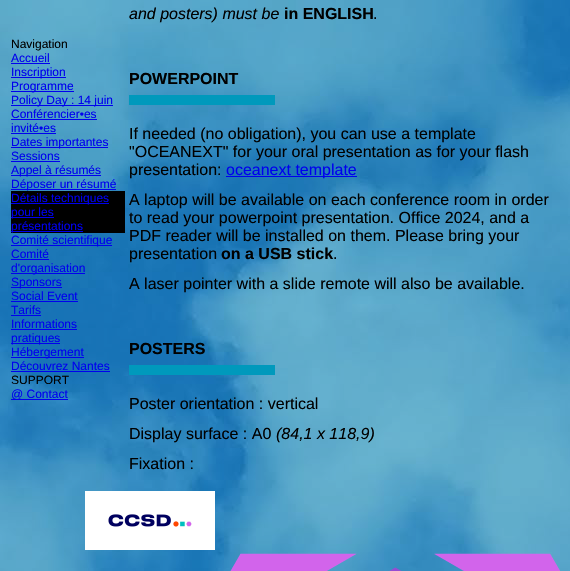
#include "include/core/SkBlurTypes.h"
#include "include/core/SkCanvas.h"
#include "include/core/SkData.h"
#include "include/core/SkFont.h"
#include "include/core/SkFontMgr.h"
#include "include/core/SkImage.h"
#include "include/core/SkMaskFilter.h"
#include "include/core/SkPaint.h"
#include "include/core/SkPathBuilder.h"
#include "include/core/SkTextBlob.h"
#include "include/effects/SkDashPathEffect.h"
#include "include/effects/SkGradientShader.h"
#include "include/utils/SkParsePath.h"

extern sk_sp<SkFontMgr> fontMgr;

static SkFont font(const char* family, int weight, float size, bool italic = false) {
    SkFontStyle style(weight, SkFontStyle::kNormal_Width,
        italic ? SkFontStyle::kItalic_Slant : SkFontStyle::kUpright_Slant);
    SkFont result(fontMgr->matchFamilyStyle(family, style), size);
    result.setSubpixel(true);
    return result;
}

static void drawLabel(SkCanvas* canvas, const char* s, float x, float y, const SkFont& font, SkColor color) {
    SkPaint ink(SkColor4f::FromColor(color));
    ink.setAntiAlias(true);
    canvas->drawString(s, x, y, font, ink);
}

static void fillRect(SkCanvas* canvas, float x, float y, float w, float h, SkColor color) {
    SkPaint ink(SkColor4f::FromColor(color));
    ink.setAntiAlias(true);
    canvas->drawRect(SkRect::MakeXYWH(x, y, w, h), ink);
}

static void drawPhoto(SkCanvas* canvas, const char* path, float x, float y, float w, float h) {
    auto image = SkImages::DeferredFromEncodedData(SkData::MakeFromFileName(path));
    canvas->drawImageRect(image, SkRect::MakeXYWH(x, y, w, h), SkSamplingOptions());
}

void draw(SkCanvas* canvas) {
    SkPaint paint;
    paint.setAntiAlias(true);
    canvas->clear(0xFFFFFFFF);
    drawPhoto(canvas, "assets/img1.png", 0, 0, 570, 571);
    SkFont font1 = font("Liberation Sans", 400, 12);
    drawLabel(canvas, "Navigation", 11, 48, font1, 0xFF000000);
    drawLabel(canvas, "Accueil", 11, 62, font1, 0xFF0000EE);
    fillRect(canvas, 11, 63, 39, 1, 0xFF0000EE);
    fillRect(canvas, 11, 77, 55, 1, 0xFF0000EE);
    drawLabel(canvas, "Inscription", 11, 76, font1, 0xFF0000EE);
    fillRect(canvas, 11, 91, 63, 1, 0xFF0000EE);
    drawLabel(canvas, "Programme", 11, 90, font1, 0xFF0000EE);
    fillRect(canvas, 11, 105, 102, 1, 0xFF0000EE);
    drawLabel(canvas, "Policy Day : 14 juin", 11, 104, font1, 0xFF0000EE);
    drawLabel(canvas, "Conférencier•es", 11, 118, font1, 0xFF0000EE);
    fillRect(canvas, 11, 119, 86, 1, 0xFF0000EE);
    drawLabel(canvas, "invité•es", 11, 132, font1, 0xFF0000EE);
    fillRect(canvas, 11, 133, 45, 1, 0xFF0000EE);
    fillRect(canvas, 11, 147, 97, 1, 0xFF0000EE);
    drawLabel(canvas, "Dates importantes", 11, 146, font1, 0xFF0000EE);
    drawLabel(canvas, "Sessions", 11, 160, font1, 0xFF0000EE);
    fillRect(canvas, 11, 161, 49, 1, 0xFF0000EE);
    fillRect(canvas, 11, 175, 90, 1, 0xFF0000EE);
    drawLabel(canvas, "Appel à résumés", 11, 174, font1, 0xFF0000EE);
    fillRect(canvas, 11, 189, 105, 1, 0xFF0000EE);
    drawLabel(canvas, "Déposer un résumé", 11, 188, font1, 0xFF0000EE);
    fillRect(canvas, 11, 191, 114, 42, 0xFF000000);
    fillRect(canvas, 11, 203, 98, 1, 0xFF0000EE);
    drawLabel(canvas, "Détails techniques", 11, 202, font1, 0xFF0000EE);
    fillRect(canvas, 11, 217, 43, 1, 0xFF0000EE);
    drawLabel(canvas, "pour les", 11, 216, font1, 0xFF0000EE);
    fillRect(canvas, 11, 231, 72, 1, 0xFF0000EE);
    drawLabel(canvas, "présentations", 11, 230, font1, 0xFF0000EE);
    fillRect(canvas, 11, 245, 101, 1, 0xFF0000EE);
    drawLabel(canvas, "Comité scientifique", 11, 244, font1, 0xFF0000EE);
    drawLabel(canvas, "Comité", 11, 258, font1, 0xFF0000EE);
    fillRect(canvas, 11, 259, 38, 1, 0xFF0000EE);
    fillRect(canvas, 11, 273, 74, 1, 0xFF0000EE);
    drawLabel(canvas, "d'organisation", 11, 272, font1, 0xFF0000EE);
    fillRect(canvas, 11, 287, 51, 1, 0xFF0000EE);
    drawLabel(canvas, "Sponsors", 11, 286, font1, 0xFF0000EE);
    drawLabel(canvas, "Social Event", 11, 300, font1, 0xFF0000EE);
    fillRect(canvas, 11, 301, 67, 1, 0xFF0000EE);
    drawLabel(canvas, "Tarifs", 11, 314, font1, 0xFF0000EE);
    fillRect(canvas, 11, 315, 30, 1, 0xFF0000EE);
    drawLabel(canvas, "Informations", 11, 328, font1, 0xFF0000EE);
    fillRect(canvas, 11, 329, 66, 1, 0xFF0000EE);
    fillRect(canvas, 11, 343, 49, 1, 0xFF0000EE);
    drawLabel(canvas, "pratiques", 11, 342, font1, 0xFF0000EE);
    fillRect(canvas, 11, 357, 73, 1, 0xFF0000EE);
    drawLabel(canvas, "Hébergement", 11, 356, font1, 0xFF0000EE);
    drawLabel(canvas, "Découvrez Nantes", 11, 370, font1, 0xFF0000EE);
    fillRect(canvas, 11, 371, 99, 1, 0xFF0000EE);
    drawLabel(canvas, "SUPPORT", 11, 384, font1, 0xFF000000);
    fillRect(canvas, 11, 399, 57, 1, 0xFF0000EE);
    drawLabel(canvas, "@ Contact", 11, 398, font1, 0xFF0000EE);
    SkFont font2 = font("Liberation Sans", 400, 16, true);
    drawLabel(canvas, "and posters) must be", 129, 19, font2, 0xFF000000);
    SkFont font3 = font("Liberation Sans", 700, 16);
    drawLabel(canvas, "in ENGLISH", 284, 19, font3, 0xFF000000);
    SkFont font4 = font("Liberation Sans", 400, 16);
    drawLabel(canvas, ".", 373, 19, font4, 0xFF000000);
    drawLabel(canvas, "POWERPOINT", 129, 84, font3, 0xFF000000);
    fillRect(canvas, 129, 95, 146, 10, 0xFF0099BC);
    drawLabel(canvas, "If needed (no obligation), you can use a template", 129, 139, font4, 0xFF000000);
    drawLabel(canvas, "\"OCEANEXT\" for your oral presentation as for your flash", 129, 157, font4, 0xFF000000);
    drawLabel(canvas, "presentation:", 129, 175, font4, 0xFF000000);
    fillRect(canvas, 226, 176, 131, 1, 0xFF0000EE);
    drawLabel(canvas, "oceanext template", 226, 175, font4, 0xFF0000EE);
    drawLabel(canvas, "A laptop will be available on each conference room in order", 129, 205, font4, 0xFF000000);
    drawLabel(canvas, "to read your powerpoint presentation. Office 2024, and a", 129, 223, font4, 0xFF000000);
    drawLabel(canvas, "PDF reader will be installed on them. Please bring your", 129, 241, font4, 0xFF000000);
    drawLabel(canvas, "presentation", 129, 259, font4, 0xFF000000);
    drawLabel(canvas, "on a USB stick", 221, 259, font3, 0xFF000000);
    drawLabel(canvas, ".", 333, 259, font4, 0xFF000000);
    drawLabel(canvas, "A laser pointer with a slide remote will also be available.", 129, 289, font4, 0xFF000000);
    drawLabel(canvas, "POSTERS", 129, 354, font3, 0xFF000000);
    fillRect(canvas, 129, 365, 146, 10, 0xFF0099BC);
    drawLabel(canvas, "Poster orientation : vertical", 129, 409, font4, 0xFF000000);
    drawLabel(canvas, "Display surface : A0", 129, 439, font4, 0xFF000000);
    drawLabel(canvas, "(84,1 x 118,9)", 276, 439, font2, 0xFF000000);
    drawLabel(canvas, "Fixation :", 129, 469, font4, 0xFF000000);
    drawPhoto(canvas, "assets/img2.png", 85, 491, 130, 59);
    drawPhoto(canvas, "assets/img3.png", 230, 553, 330, 18);
}
